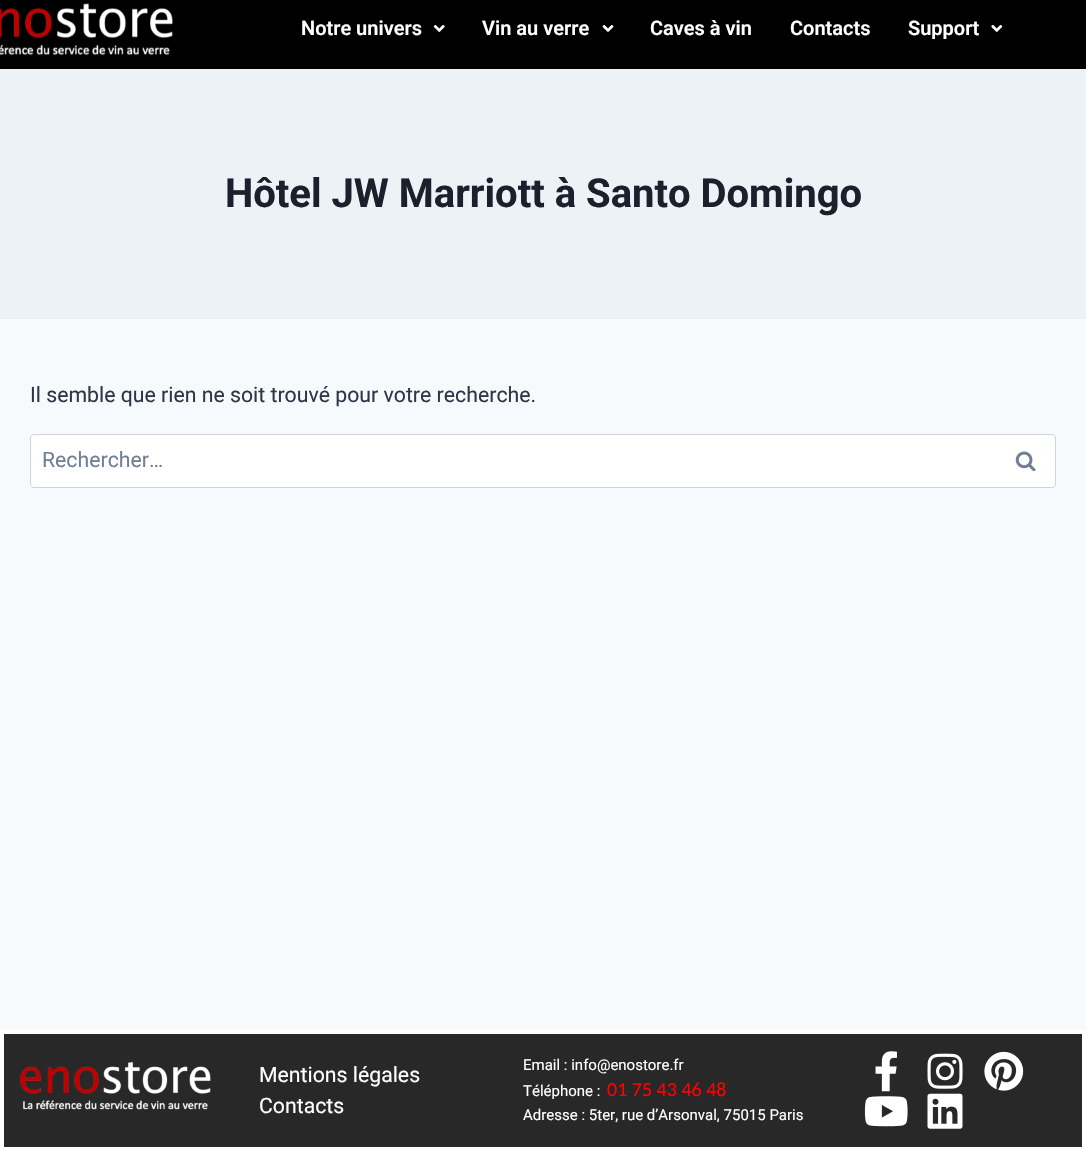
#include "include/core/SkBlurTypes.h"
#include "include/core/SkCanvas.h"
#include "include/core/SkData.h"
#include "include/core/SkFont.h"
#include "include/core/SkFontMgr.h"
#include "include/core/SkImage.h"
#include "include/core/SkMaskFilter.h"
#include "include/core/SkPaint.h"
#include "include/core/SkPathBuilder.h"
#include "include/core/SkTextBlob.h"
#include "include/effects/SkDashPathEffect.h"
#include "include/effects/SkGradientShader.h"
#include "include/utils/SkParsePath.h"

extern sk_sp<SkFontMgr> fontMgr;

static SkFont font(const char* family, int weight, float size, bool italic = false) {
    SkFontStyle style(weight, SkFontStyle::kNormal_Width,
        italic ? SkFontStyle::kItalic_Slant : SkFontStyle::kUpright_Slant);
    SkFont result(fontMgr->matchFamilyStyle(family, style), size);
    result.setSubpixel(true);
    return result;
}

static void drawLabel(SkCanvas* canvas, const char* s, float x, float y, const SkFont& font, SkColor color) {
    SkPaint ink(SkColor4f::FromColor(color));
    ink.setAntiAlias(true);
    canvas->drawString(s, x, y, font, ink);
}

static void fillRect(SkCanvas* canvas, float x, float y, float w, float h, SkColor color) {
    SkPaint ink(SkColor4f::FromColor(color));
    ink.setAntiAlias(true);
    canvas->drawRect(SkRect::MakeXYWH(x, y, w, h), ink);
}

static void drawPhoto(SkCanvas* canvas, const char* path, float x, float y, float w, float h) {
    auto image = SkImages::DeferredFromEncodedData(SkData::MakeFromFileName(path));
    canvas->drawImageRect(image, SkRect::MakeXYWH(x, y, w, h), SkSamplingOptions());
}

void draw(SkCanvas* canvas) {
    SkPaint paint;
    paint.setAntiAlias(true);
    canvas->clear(0xFFF7FAFC);
    fillRect(canvas, 0, 0, 1086, 69, 0xFF000000);
    drawPhoto(canvas, "assets/img1.png", 0, 3, 173, 53);
    SkFont font1 = font("Roboto", 600, 20);
    drawLabel(canvas, "Notre univers", 301, 35, font1, 0xFFFFFFFF);
    drawPhoto(canvas, "assets/img2.png", 433, 25, 12, 7);
    drawLabel(canvas, "Vin au verre", 482, 35, font1, 0xFFFFFFFF);
    drawPhoto(canvas, "assets/img3.png", 602, 25, 12, 7);
    drawLabel(canvas, "Caves à vin", 650, 35, font1, 0xFFFFFFFF);
    drawLabel(canvas, "Contacts", 790, 35, font1, 0xFFFFFFFF);
    drawLabel(canvas, "Support", 908, 35, font1, 0xFFFFFFFF);
    drawPhoto(canvas, "assets/img4.png", 991, 25, 12, 7);
    fillRect(canvas, 0, 69, 1086, 250, 0xFFEDF2F7);
    SkFont font2 = font("Roboto", 700, 40);
    drawLabel(canvas, "Hôtel JW Marriott à Santo Domingo", 225, 207, font2, 0xFF1A202C);
    SkFont font3 = font("Roboto", 400, 21.25f);
    drawLabel(canvas, "Il semble que rien ne soit trouvé pour votre recherche.", 30, 402, font3, 0xFF2D3748);
    paint.setColor(0xFFFFFFFF);
    canvas->drawRoundRect(SkRect::MakeXYWH(30.5f, 434.5f, 1025, 53), 3.5f, 3.5f, paint);
    paint.setStroke(true);
    paint.setStrokeWidth(1);
    paint.setColor(0xFFCBD5E0);
    canvas->drawRoundRect(SkRect::MakeXYWH(30.5f, 434.5f, 1025, 53), 3.5f, 3.5f, paint);
    drawLabel(canvas, "Rechercher…", 42, 467, font3, 0xFF718096);
    drawPhoto(canvas, "assets/img5.png", 1015, 451, 21, 20);
    paint.setStroke(false);
    paint.setColor(0xFF282828);
    canvas->drawRect(SkRect::MakeXYWH(2, 1032, 1082, 117), paint);
    paint.setStroke(true);
    paint.setStrokeWidth(4);
    paint.setColor(0xFFFFFFFF);
    canvas->drawRect(SkRect::MakeXYWH(2, 1032, 1082, 117), paint);
    drawPhoto(canvas, "assets/img6.png", 19, 1062, 192, 48);
    drawLabel(canvas, "Mentions légales", 259, 1082, font3, 0xFFFFFFFF);
    drawLabel(canvas, "Contacts", 259, 1113, font3, 0xFFFFFFFF);
    SkFont font4 = font("Roboto", 400, 15);
    drawLabel(canvas, "Email : info@enostore.fr", 523, 1070, font4, 0xFFFFFFFF);
    drawLabel(canvas, "Téléphone :", 523, 1096, font4, 0xFFFFFFFF);
    SkFont font5 = font("Carlito", 400, 20);
    drawLabel(canvas, "01 75 43 46 48", 607, 1096, font5, 0xFFFF0000);
    drawLabel(canvas, "Adresse : 5ter, rue d’Arsonval, 75015 Paris", 523, 1120, font4, 0xFFFFFFFF);
    drawPhoto(canvas, "assets/img7.png", 875, 1051, 22, 41);
    drawPhoto(canvas, "assets/img8.png", 927, 1053, 36, 36);
    drawPhoto(canvas, "assets/img9.png", 984, 1051, 40, 40);
    drawPhoto(canvas, "assets/img10.png", 864, 1096, 44, 31);
    drawPhoto(canvas, "assets/img11.png", 927, 1093, 36, 36);
}
